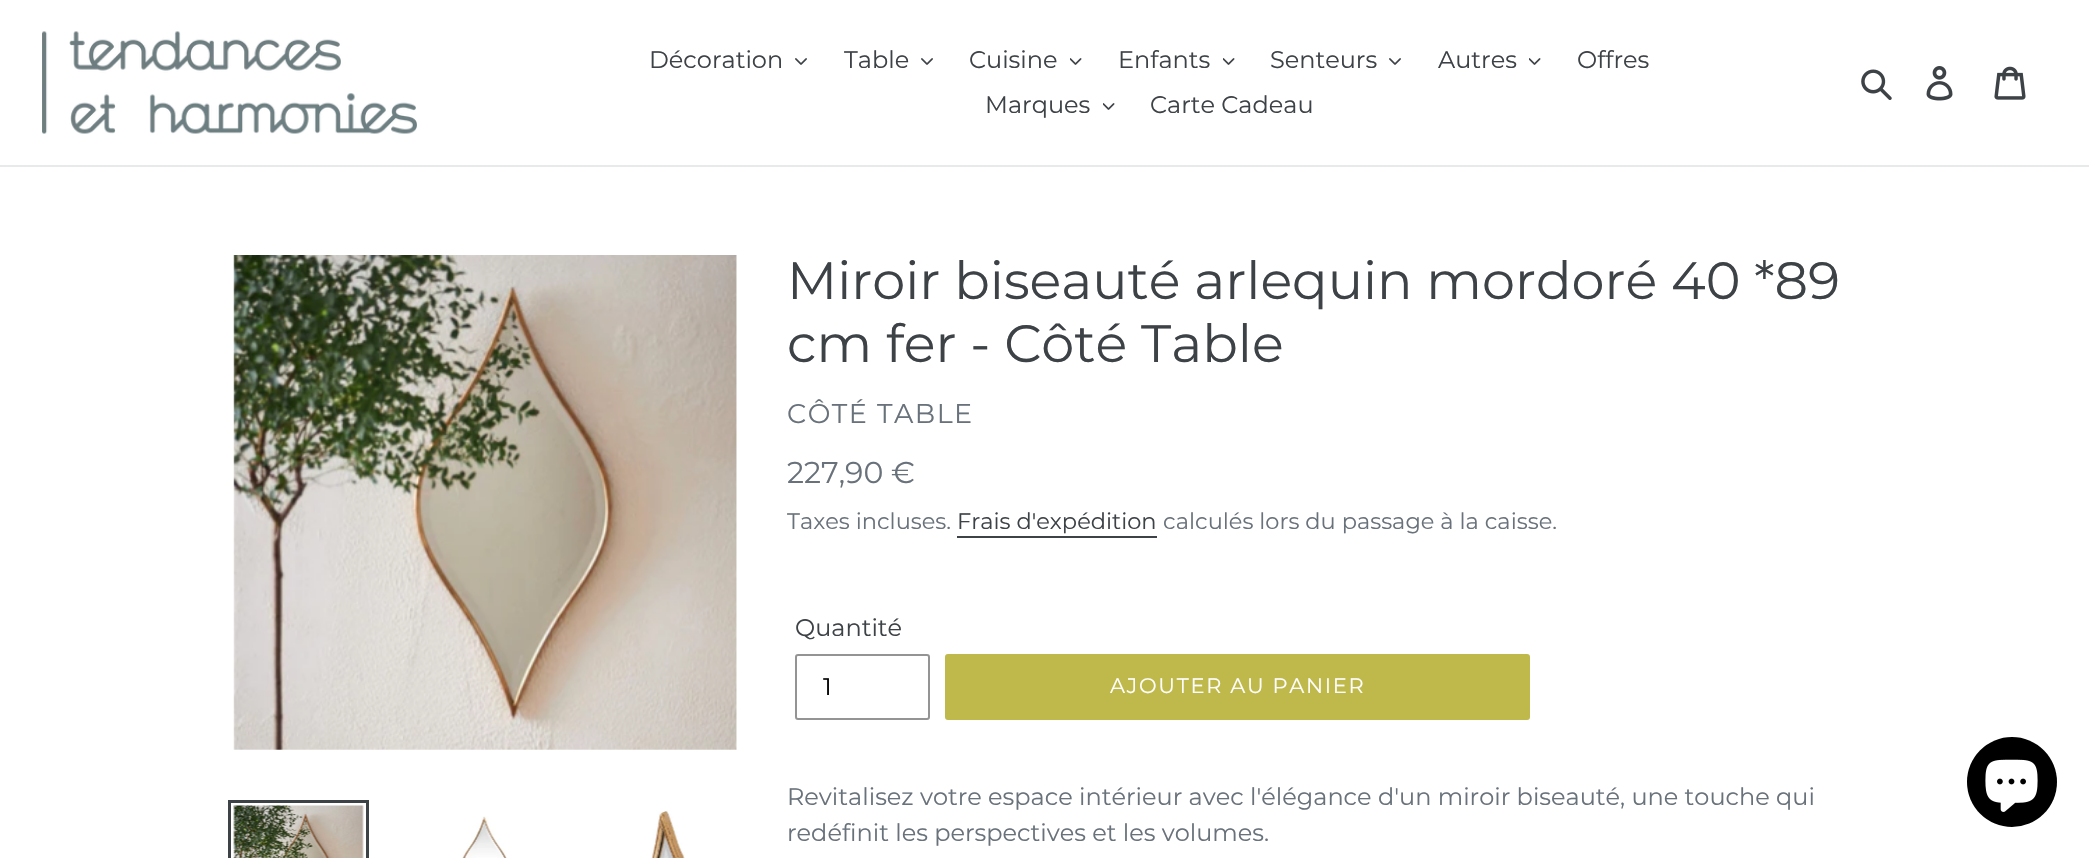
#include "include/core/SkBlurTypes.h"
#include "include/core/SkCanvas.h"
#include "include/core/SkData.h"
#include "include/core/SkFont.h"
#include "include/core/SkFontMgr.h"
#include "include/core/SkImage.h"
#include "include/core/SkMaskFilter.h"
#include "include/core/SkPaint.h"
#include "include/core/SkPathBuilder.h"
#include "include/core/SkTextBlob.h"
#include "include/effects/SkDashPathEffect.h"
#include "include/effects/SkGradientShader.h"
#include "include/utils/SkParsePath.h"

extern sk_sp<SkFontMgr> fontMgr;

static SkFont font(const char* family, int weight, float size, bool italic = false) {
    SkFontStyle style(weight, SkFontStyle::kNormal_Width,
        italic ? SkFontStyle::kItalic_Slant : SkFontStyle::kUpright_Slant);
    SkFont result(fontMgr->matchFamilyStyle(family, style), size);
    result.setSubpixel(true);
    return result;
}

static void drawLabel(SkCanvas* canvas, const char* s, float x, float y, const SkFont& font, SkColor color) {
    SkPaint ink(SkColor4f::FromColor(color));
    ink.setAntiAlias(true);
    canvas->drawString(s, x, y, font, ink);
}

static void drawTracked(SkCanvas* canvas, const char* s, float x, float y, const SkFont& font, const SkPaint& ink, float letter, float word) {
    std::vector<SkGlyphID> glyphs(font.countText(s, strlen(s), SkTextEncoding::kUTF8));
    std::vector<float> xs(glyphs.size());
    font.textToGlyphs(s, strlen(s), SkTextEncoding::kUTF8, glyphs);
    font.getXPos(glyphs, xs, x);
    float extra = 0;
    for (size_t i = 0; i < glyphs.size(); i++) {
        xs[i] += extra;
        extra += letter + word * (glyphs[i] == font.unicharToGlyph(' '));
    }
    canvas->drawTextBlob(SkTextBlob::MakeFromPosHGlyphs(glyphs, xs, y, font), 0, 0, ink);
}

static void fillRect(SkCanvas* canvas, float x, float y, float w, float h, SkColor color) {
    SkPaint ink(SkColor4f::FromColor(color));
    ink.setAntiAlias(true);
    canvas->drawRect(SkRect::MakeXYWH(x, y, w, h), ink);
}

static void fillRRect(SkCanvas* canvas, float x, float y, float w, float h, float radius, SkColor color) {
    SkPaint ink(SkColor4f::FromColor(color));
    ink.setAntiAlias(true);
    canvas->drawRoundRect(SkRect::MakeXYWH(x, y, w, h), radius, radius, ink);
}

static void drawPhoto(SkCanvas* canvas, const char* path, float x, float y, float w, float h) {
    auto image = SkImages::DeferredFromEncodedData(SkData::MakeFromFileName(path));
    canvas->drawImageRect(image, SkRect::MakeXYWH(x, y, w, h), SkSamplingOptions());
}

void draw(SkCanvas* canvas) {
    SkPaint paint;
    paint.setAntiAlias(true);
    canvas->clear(0xFFFFFFFF);
    fillRect(canvas, 0, 165, 2089, 2, 0xFFE8E9EB);
    drawPhoto(canvas, "assets/img1.png", 42, 31, 375, 103);
    SkFont font1 = font("Montserrat", 400, 24);
    drawLabel(canvas, "Décoration", 649, 68, font1, 0xFF3D4246);
    drawPhoto(canvas, "assets/img2.png", 795, 58, 12, 7);
    drawLabel(canvas, "Table", 844, 68, font1, 0xFF3D4246);
    drawPhoto(canvas, "assets/img2.png", 921, 58, 12, 7);
    drawLabel(canvas, "Cuisine", 969, 68, font1, 0xFF3D4246);
    drawPhoto(canvas, "assets/img3.png", 1070, 58, 12, 7);
    drawLabel(canvas, "Enfants", 1118, 68, font1, 0xFF3D4246);
    drawPhoto(canvas, "assets/img3.png", 1223, 58, 12, 7);
    drawLabel(canvas, "Senteurs", 1270, 68, font1, 0xFF3D4246);
    drawPhoto(canvas, "assets/img2.png", 1389, 58, 12, 7);
    drawLabel(canvas, "Autres", 1438, 68, font1, 0xFF3D4246);
    drawPhoto(canvas, "assets/img3.png", 1529, 58, 12, 7);
    drawLabel(canvas, "Offres", 1577, 68, font1, 0xFF3D4246);
    drawLabel(canvas, "Marques", 985, 113, font1, 0xFF3D4246);
    drawPhoto(canvas, "assets/img3.png", 1103, 103, 12, 7);
    drawLabel(canvas, "Carte Cadeau", 1150, 113, font1, 0xFF3D4246);
    drawPhoto(canvas, "assets/img4.png", 1861, 69, 31, 31);
    drawPhoto(canvas, "assets/img5.png", 1926, 66, 27, 35);
    drawPhoto(canvas, "assets/img6.png", 1994, 66, 32, 34);
    drawPhoto(canvas, "assets/img7.png", 233, 255, 504, 495);
    paint.setStroke(true);
    paint.setStrokeWidth(3);
    paint.setColor(0xFF3D4246);
    canvas->drawRect(SkRect::MakeXYWH(229.5f, 801.5f, 138, 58), paint);
    drawPhoto(canvas, "assets/img8.png", 233, 805, 131, 53);
    drawPhoto(canvas, "assets/img9.png", 462, 816, 45, 42);
    drawPhoto(canvas, "assets/img10.png", 651, 810, 34, 48);
    SkFont font2 = font("Montserrat", 400, 52.5f);
    drawLabel(canvas, "Miroir biseauté arlequin mordoré 40 *89", 787, 299, font2, 0xFF3D4246);
    drawLabel(canvas, "cm fer - Côté Table", 787, 362, font2, 0xFF3D4246);
    SkFont font3 = font("Montserrat", 400, 27);
    paint.setStroke(false);
    paint.setColor(0xFF69727B);
    drawTracked(canvas, "CÔTÉ TABLE", 787, 423, font3, paint, 1.5f, 0);
    SkFont font4 = font("Montserrat", 400, 30);
    drawLabel(canvas, "227,90 €", 787, 483, font4, 0xFF69727B);
    SkFont font5 = font("Montserrat", 400, 22.5f);
    drawLabel(canvas, "Taxes incluses.", 787, 529, font5, 0xFF69727B);
    drawLabel(canvas, "Frais d'expédition", 957, 529, font5, 0xFF3D4246);
    fillRect(canvas, 957, 536, 200, 2, 0xFF3D4246);
    drawLabel(canvas, "calculés lors du passage à la caisse.", 1163, 529, font5, 0xFF69727B);
    drawLabel(canvas, "Quantité", 795, 636, font1, 0xFF3D4246);
    paint.setStroke(true);
    paint.setStrokeWidth(2);
    paint.setColor(0xFF949494);
    canvas->drawRoundRect(SkRect::MakeXYWH(796, 655, 133, 64), 2, 2, paint);
    drawLabel(canvas, "1", 823, 695, font1, 0xFF000000);
    fillRRect(canvas, 945, 654, 585, 66, 3, 0xFFBFB94B);
    SkFont font6 = font("Montserrat", 400, 21);
    paint.setStroke(false);
    paint.setColor(0xFFFFFFFF);
    drawTracked(canvas, "AJOUTER AU PANIER", 1110, 693, font6, paint, 1.7f, 0);
    drawLabel(canvas, "Revitalisez votre espace intérieur avec l'élégance d'un miroir biseauté, une touche qui", 787, 805, font1, 0xFF69727B);
    drawLabel(canvas, "redéfinit les perspectives et les volumes.", 787, 841, font1, 0xFF69727B);
    paint.setColor(0xFF000000);
    canvas->drawCircle(2012, 782, 45, paint);
    drawPhoto(canvas, "assets/img11.png", 1985, 759, 53, 53);
}
